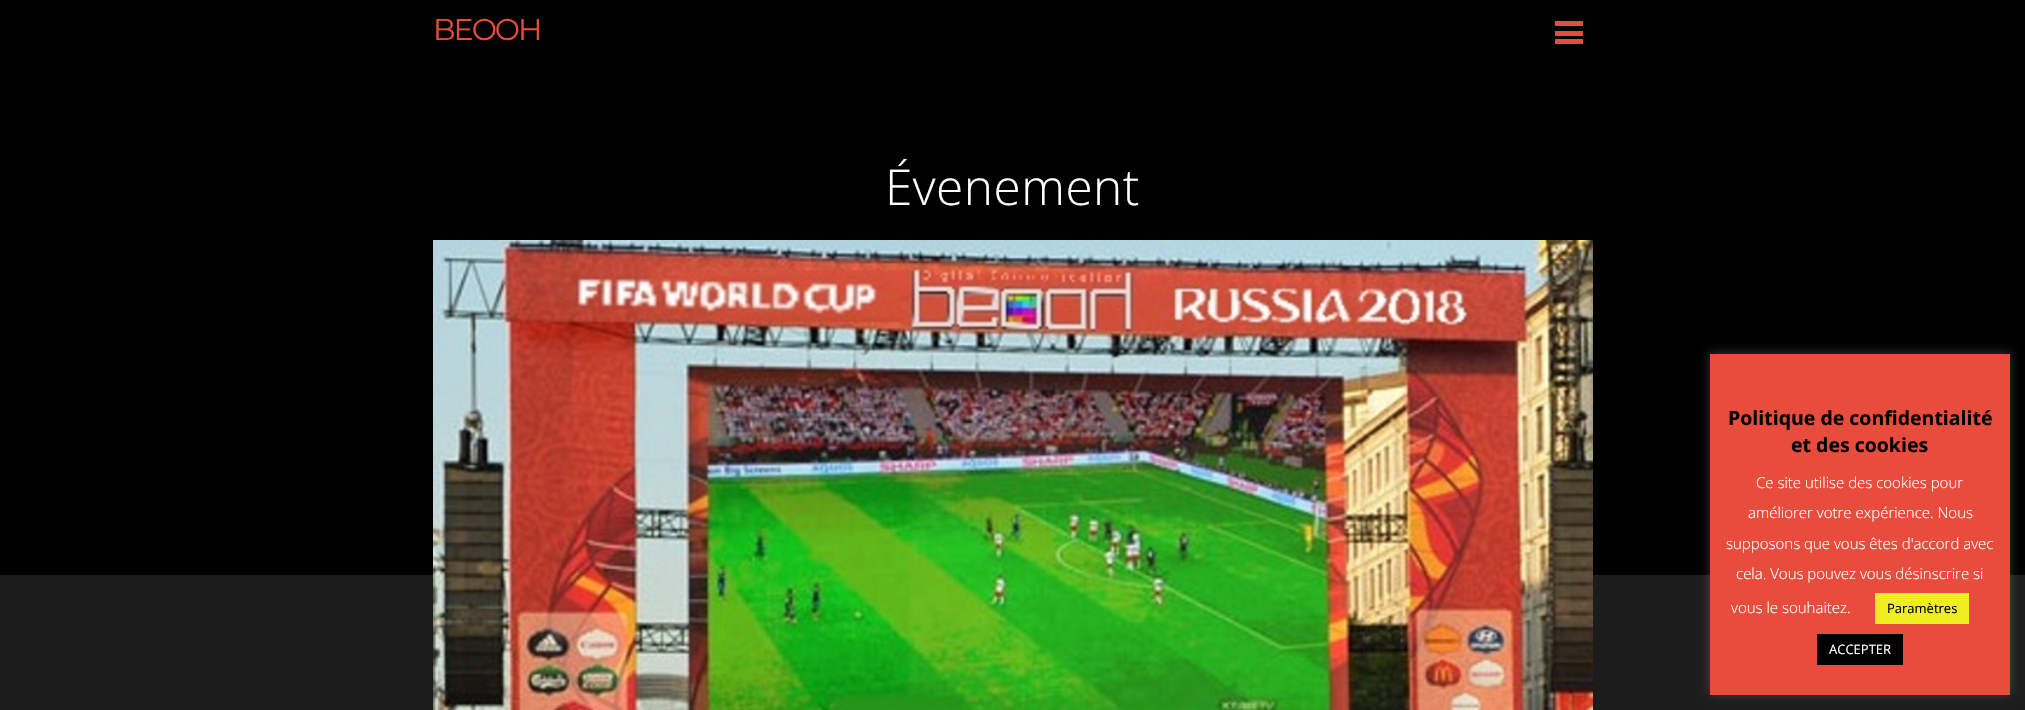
#include "include/core/SkBlurTypes.h"
#include "include/core/SkCanvas.h"
#include "include/core/SkData.h"
#include "include/core/SkFont.h"
#include "include/core/SkFontMgr.h"
#include "include/core/SkImage.h"
#include "include/core/SkMaskFilter.h"
#include "include/core/SkPaint.h"
#include "include/core/SkPathBuilder.h"
#include "include/core/SkTextBlob.h"
#include "include/effects/SkDashPathEffect.h"
#include "include/effects/SkGradientShader.h"
#include "include/utils/SkParsePath.h"

extern sk_sp<SkFontMgr> fontMgr;

static SkFont font(const char* family, int weight, float size, bool italic = false) {
    SkFontStyle style(weight, SkFontStyle::kNormal_Width,
        italic ? SkFontStyle::kItalic_Slant : SkFontStyle::kUpright_Slant);
    SkFont result(fontMgr->matchFamilyStyle(family, style), size);
    result.setSubpixel(true);
    return result;
}

static void drawLabel(SkCanvas* canvas, const char* s, float x, float y, const SkFont& font, SkColor color) {
    SkPaint ink(SkColor4f::FromColor(color));
    ink.setAntiAlias(true);
    canvas->drawString(s, x, y, font, ink);
}

static void drawTracked(SkCanvas* canvas, const char* s, float x, float y, const SkFont& font, const SkPaint& ink, float letter, float word) {
    std::vector<SkGlyphID> glyphs(font.countText(s, strlen(s), SkTextEncoding::kUTF8));
    std::vector<float> xs(glyphs.size());
    font.textToGlyphs(s, strlen(s), SkTextEncoding::kUTF8, glyphs);
    font.getXPos(glyphs, xs, x);
    float extra = 0;
    for (size_t i = 0; i < glyphs.size(); i++) {
        xs[i] += extra;
        extra += letter + word * (glyphs[i] == font.unicharToGlyph(' '));
    }
    canvas->drawTextBlob(SkTextBlob::MakeFromPosHGlyphs(glyphs, xs, y, font), 0, 0, ink);
}

static void fillRect(SkCanvas* canvas, float x, float y, float w, float h, SkColor color) {
    SkPaint ink(SkColor4f::FromColor(color));
    ink.setAntiAlias(true);
    canvas->drawRect(SkRect::MakeXYWH(x, y, w, h), ink);
}

static void drawPhoto(SkCanvas* canvas, const char* path, float x, float y, float w, float h) {
    auto image = SkImages::DeferredFromEncodedData(SkData::MakeFromFileName(path));
    canvas->drawImageRect(image, SkRect::MakeXYWH(x, y, w, h), SkSamplingOptions());
}

void draw(SkCanvas* canvas) {
    SkPaint paint;
    paint.setAntiAlias(true);
    canvas->clear(0xFF1C1C1C);
    fillRect(canvas, 0, 0, 2025, 575, 0xFF000000);
    SkFont font1 = font("Montserrat", 400, 30);
    paint.setColor(0xFFE74C3C);
    drawTracked(canvas, "BEOOH", 433, 40, font1, paint, -2, 0);
    fillRect(canvas, 1555, 21, 28, 5, 0xFFE74C3C);
    fillRect(canvas, 1555, 39, 28, 5, 0xFFE74C3C);
    fillRect(canvas, 1555, 31, 28, 5, 0xFFE74C3C);
    canvas->save();
    canvas->clipRect(SkRect::MakeXYWH(433, 159, 1160, 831));
    SkFont font2 = font("Open Sans", 300, 49.5f);
    paint.setColor(0xFFFFFFFF);
    drawTracked(canvas, "Évenement", 885, 205, font2, paint, 0.5f, 0);
    canvas->restore();
    drawPhoto(canvas, "assets/img1.png", 433, 240, 1160, 470);
    paint.setColor(0x4DACABAB);
    paint.setMaskFilter(SkMaskFilter::MakeBlur(kNormal_SkBlurStyle, 5));
    canvas->drawRect(SkRect::MakeXYWH(1710, 353, 300, 341), paint);
    paint.setMaskFilter(nullptr);
    fillRect(canvas, 1710, 354, 300, 341, 0xFFE74C3C);
    SkFont font3 = font("Open Sans", 700, 19.5f);
    drawLabel(canvas, "Politique de confidentialité", 1728, 425, font3, 0xFF000000);
    drawLabel(canvas, "et des cookies", 1791, 452, font3, 0xFF000000);
    SkFont font4 = font("Open Sans", 300, 15);
    drawLabel(canvas, "Ce site utilise des cookies pour", 1756, 488, font4, 0xFFFFFFFF);
    drawLabel(canvas, "améliorer votre expérience. Nous", 1748, 518, font4, 0xFFFFFFFF);
    drawLabel(canvas, "supposons que vous êtes d'accord avec", 1726, 549, font4, 0xFFFFFFFF);
    drawLabel(canvas, "cela. Vous pouvez vous désinscrire si", 1736, 579, font4, 0xFFFFFFFF);
    drawLabel(canvas, "vous le souhaitez.", 1731, 613, font4, 0xFFFFFFFF);
    fillRect(canvas, 1875, 593, 94, 31, 0xFFEEEE22);
    SkFont font5 = font("Open Sans", 400, 13);
    drawLabel(canvas, "Paramètres", 1887, 613, font5, 0xFF000000);
    fillRect(canvas, 1817, 634, 86, 31, 0xFF000000);
    drawLabel(canvas, "ACCEPTER", 1829, 654, font5, 0xFFFFFFFF);
}
